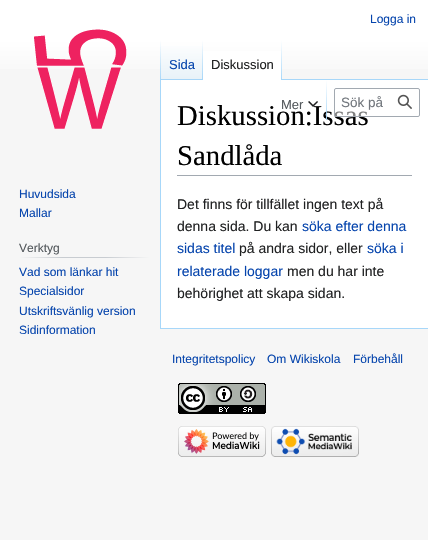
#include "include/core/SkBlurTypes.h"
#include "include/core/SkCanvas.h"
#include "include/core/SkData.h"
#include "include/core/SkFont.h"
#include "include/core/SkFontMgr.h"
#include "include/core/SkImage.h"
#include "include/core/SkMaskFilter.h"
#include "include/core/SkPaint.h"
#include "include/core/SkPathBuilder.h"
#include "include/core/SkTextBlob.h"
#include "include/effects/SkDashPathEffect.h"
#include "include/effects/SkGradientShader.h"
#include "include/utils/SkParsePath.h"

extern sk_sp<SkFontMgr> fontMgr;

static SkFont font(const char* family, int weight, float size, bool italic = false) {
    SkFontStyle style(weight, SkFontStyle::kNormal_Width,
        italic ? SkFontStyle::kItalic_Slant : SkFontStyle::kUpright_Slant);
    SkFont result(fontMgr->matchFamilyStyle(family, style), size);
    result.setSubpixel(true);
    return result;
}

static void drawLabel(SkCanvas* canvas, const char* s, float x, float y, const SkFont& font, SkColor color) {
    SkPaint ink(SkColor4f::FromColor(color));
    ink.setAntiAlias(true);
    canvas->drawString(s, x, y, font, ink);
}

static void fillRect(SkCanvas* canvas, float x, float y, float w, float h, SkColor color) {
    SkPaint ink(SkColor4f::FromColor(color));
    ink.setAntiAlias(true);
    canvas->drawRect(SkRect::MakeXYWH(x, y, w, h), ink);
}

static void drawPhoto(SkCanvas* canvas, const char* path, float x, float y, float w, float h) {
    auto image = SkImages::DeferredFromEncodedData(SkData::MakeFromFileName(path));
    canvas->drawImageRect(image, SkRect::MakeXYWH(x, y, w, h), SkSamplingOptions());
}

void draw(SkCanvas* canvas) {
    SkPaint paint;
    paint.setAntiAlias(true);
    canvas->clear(0xFFF6F6F6);
    {
        const SkColor colors[] = {0xFFFFFFFF, 0xFFF6F6F6};
        const float stops[] = {0.5f, 1};
        const SkPoint ends[] = {{214, 0}, {214, 80}};
        paint.setShader(SkGradientShader::MakeLinear(ends, colors, stops, 2, SkTileMode::kClamp));
        paint.setAlpha(255);
    }
    canvas->drawRect(SkRect::MakeXYWH(0, 0, 428, 69), paint);
    SkFont font1 = font("Liberation Sans", 400, 12);
    drawLabel(canvas, "Logga in", 370, 23, font1, 0xFF0645AD);
    fillRect(canvas, 160, 328, 268, 1, 0xFFA7D7F9);
    fillRect(canvas, 160, 79, 1, 250, 0xFFA7D7F9);
    {
        const SkColor colors[] = {0x00A7D7F9, 0xFFA7D7F9};
        const float stops[] = {0, 1};
        const SkPoint ends[] = {{161, 40}, {161, 80}};
        paint.setShader(SkGradientShader::MakeLinear(ends, colors, stops, 2, SkTileMode::kClamp));
        paint.setAlpha(255);
    }
    canvas->drawRect(SkRect::MakeXYWH(160, 40, 1, 40), paint);
    {
        const SkColor colors[] = {0xFF77C1F6, 0xFFE8F2F8, 0xFFFFFFFF};
        const float stops[] = {0, 0.03f, 1};
        const SkPoint ends[] = {{182, 80}, {182, 40}};
        paint.setShader(SkGradientShader::MakeLinear(ends, colors, stops, 3, SkTileMode::kClamp));
        paint.setAlpha(255);
    }
    canvas->drawRect(SkRect::MakeXYWH(161, 46, 42, 34), paint);
    {
        const SkColor colors[] = {0x00A7D7F9, 0xFFA7D7F9};
        const float stops[] = {0, 1};
        const SkPoint ends[] = {{203, 40}, {203, 80}};
        paint.setShader(SkGradientShader::MakeLinear(ends, colors, stops, 2, SkTileMode::kClamp));
        paint.setAlpha(255);
    }
    canvas->drawRect(SkRect::MakeXYWH(202, 40, 1, 40), paint);
    SkFont font2 = font("Liberation Sans", 400, 13);
    drawLabel(canvas, "Sida", 169, 69, font2, 0xFF0645AD);
    fillRect(canvas, 203, 51, 78, 29, 0xFFFFFFFF);
    {
        const SkColor colors[] = {0xFFFFFFFF, 0xFFA7D7F9};
        const float stops[] = {0, 1};
        const SkPoint ends[] = {{282, 40}, {282, 80}};
        paint.setShader(SkGradientShader::MakeLinear(ends, colors, stops, 2, SkTileMode::kClamp));
        paint.setAlpha(255);
    }
    canvas->drawRect(SkRect::MakeXYWH(281, 40, 1, 40), paint);
    drawLabel(canvas, "Diskussion", 211, 69, font2, 0xFF202122);
    fillRect(canvas, 161, 80, 267, 248, 0xFFFFFFFF);
    SkFont font3 = font("Liberation Serif", 400, 28.75f);
    drawLabel(canvas, "Diskussion:Issas", 177, 125, font3, 0xFF000000);
    {
        const SkColor colors[] = {0x00A7D7F9, 0xFFA7D7F9};
        const float stops[] = {0, 1};
        const SkPoint ends[] = {{327, 80}, {327, 120}};
        paint.setShader(SkGradientShader::MakeLinear(ends, colors, stops, 2, SkTileMode::kClamp));
        paint.setAlpha(255);
    }
    canvas->drawRect(SkRect::MakeXYWH(326, 80, 1, 40), paint);
    drawLabel(canvas, "Mer", 281, 109, font2, 0xFF54595D);
    drawPhoto(canvas, "assets/img1.png", 308, 101, 10, 6);
    paint.setShader(nullptr);
    paint.setColor(0x80FFFFFF);
    canvas->drawRoundRect(SkRect::MakeXYWH(334.5f, 88.5f, 85, 28), 1.5f, 1.5f, paint);
    paint.setStroke(true);
    paint.setStrokeWidth(1);
    paint.setColor(0xFFA2A9B1);
    canvas->drawRoundRect(SkRect::MakeXYWH(334.5f, 88.5f, 85, 28), 1.5f, 1.5f, paint);
    SkFont font4 = font("Liberation Sans", 400, 13.5f);
    drawLabel(canvas, "Sök på", 341, 107, font4, 0xFF72777D);
    drawPhoto(canvas, "assets/img2.png", 397, 94, 15, 15);
    drawPhoto(canvas, "assets/img3.png", 34, 29, 93, 100);
    drawLabel(canvas, "Huvudsida", 19, 198, font1, 0xFF0645AD);
    drawLabel(canvas, "Mallar", 19, 217, font1, 0xFF0645AD);
    paint.setStroke(false);
    {
        const SkColor colors[] = {0xFFF6F6F6, 0xFFC8CCD1, 0xFFC8CCD1, 0xFFF6F6F6};
        const float stops[] = {0, 0.33f, 0.66f, 1};
        const SkPoint ends[] = {{19, 258}, {150, 258}};
        paint.setShader(SkGradientShader::MakeLinear(ends, colors, stops, 4, SkTileMode::kClamp));
        paint.setAlpha(255);
    }
    canvas->drawRect(SkRect::MakeXYWH(19, 257, 131, 1), paint);
    drawLabel(canvas, "Verktyg", 19, 252, font1, 0xFF54595D);
    drawLabel(canvas, "Vad som länkar hit", 19, 276, font1, 0xFF0645AD);
    drawLabel(canvas, "Specialsidor", 19, 295, font1, 0xFF0645AD);
    drawLabel(canvas, "Utskriftsvänlig version", 19, 315, font1, 0xFF0645AD);
    drawLabel(canvas, "Sidinformation", 19, 334, font1, 0xFF0645AD);
    fillRect(canvas, 282, 79, 146, 1, 0xFFA7D7F9);
    fillRect(canvas, 177, 175, 235, 1, 0xFFA2A9B1);
    drawLabel(canvas, "Sandlåda", 177, 165, font3, 0xFF000000);
    SkFont font5 = font("Liberation Sans", 400, 14);
    drawLabel(canvas, "Det finns för tillfället ingen text på", 177, 209, font5, 0xFF202122);
    drawLabel(canvas, "denna sida. Du kan", 177, 231, font5, 0xFF202122);
    drawLabel(canvas, "söka efter denna", 302, 231, font5, 0xFF0645AD);
    drawLabel(canvas, "sidas titel", 177, 253, font5, 0xFF0645AD);
    drawLabel(canvas, "på andra sidor, eller", 239, 253, font5, 0xFF202122);
    drawLabel(canvas, "söka i", 367, 253, font5, 0xFF0645AD);
    drawLabel(canvas, "relaterade loggar", 177, 276, font5, 0xFF0645AD);
    drawLabel(canvas, "men du har inte", 287, 276, font5, 0xFF202122);
    drawLabel(canvas, "behörighet att skapa sidan.", 177, 298, font5, 0xFF202122);
    drawLabel(canvas, "Integritetspolicy", 172, 363, font1, 0xFF0645AD);
    drawLabel(canvas, "Om Wikiskola", 267, 363, font1, 0xFF0645AD);
    drawLabel(canvas, "Förbehåll", 353, 363, font1, 0xFF0645AD);
    drawPhoto(canvas, "assets/img4.png", 178, 383, 88, 31);
    drawPhoto(canvas, "assets/img5.png", 178, 426, 88, 31);
    drawPhoto(canvas, "assets/img6.png", 271, 426, 88, 31);
}
